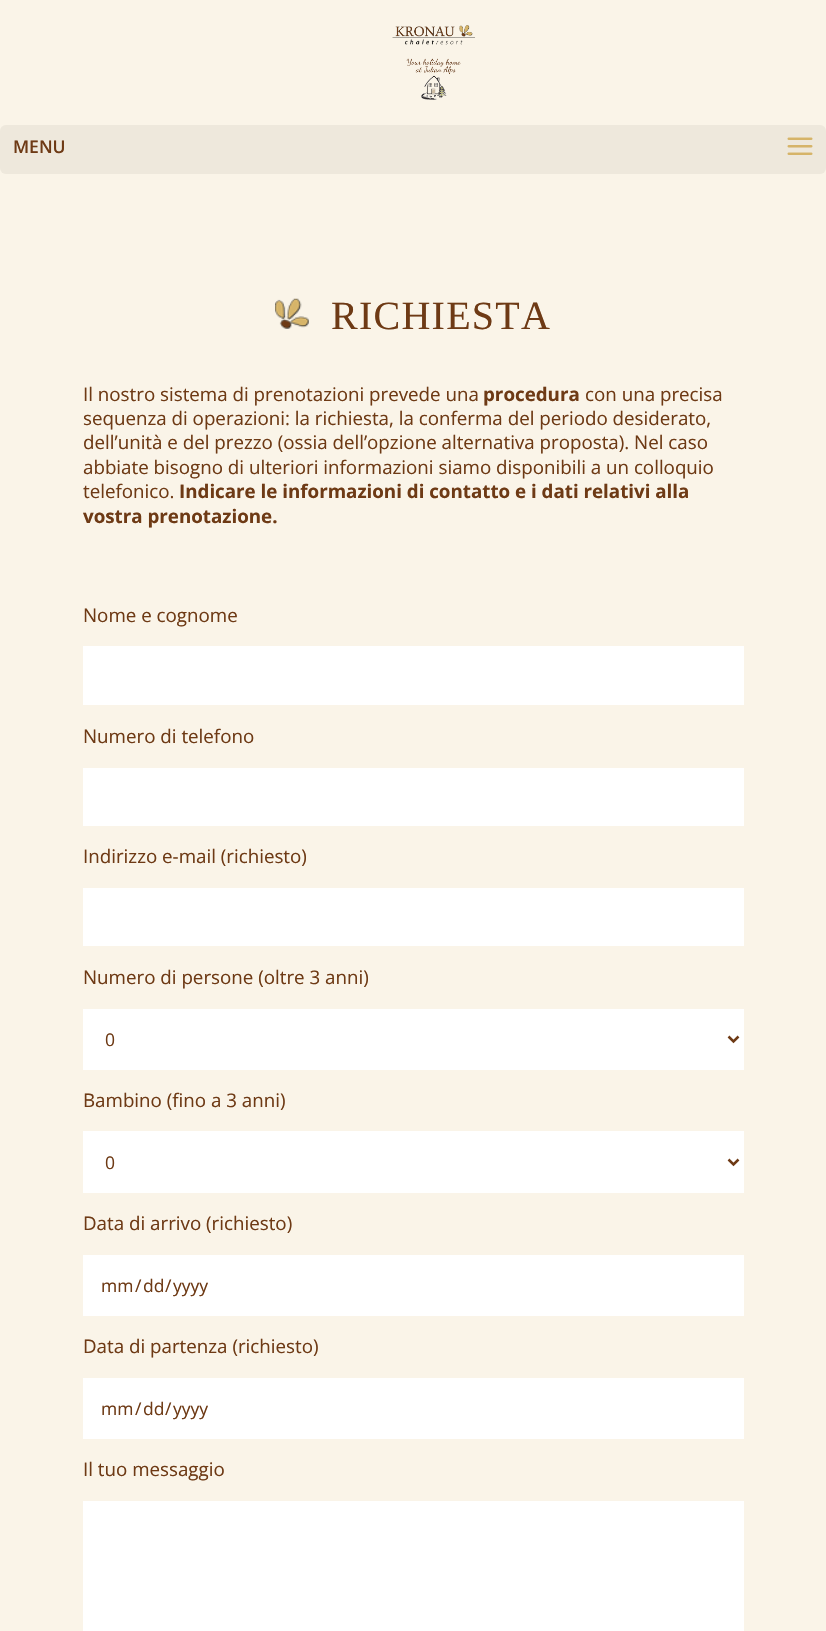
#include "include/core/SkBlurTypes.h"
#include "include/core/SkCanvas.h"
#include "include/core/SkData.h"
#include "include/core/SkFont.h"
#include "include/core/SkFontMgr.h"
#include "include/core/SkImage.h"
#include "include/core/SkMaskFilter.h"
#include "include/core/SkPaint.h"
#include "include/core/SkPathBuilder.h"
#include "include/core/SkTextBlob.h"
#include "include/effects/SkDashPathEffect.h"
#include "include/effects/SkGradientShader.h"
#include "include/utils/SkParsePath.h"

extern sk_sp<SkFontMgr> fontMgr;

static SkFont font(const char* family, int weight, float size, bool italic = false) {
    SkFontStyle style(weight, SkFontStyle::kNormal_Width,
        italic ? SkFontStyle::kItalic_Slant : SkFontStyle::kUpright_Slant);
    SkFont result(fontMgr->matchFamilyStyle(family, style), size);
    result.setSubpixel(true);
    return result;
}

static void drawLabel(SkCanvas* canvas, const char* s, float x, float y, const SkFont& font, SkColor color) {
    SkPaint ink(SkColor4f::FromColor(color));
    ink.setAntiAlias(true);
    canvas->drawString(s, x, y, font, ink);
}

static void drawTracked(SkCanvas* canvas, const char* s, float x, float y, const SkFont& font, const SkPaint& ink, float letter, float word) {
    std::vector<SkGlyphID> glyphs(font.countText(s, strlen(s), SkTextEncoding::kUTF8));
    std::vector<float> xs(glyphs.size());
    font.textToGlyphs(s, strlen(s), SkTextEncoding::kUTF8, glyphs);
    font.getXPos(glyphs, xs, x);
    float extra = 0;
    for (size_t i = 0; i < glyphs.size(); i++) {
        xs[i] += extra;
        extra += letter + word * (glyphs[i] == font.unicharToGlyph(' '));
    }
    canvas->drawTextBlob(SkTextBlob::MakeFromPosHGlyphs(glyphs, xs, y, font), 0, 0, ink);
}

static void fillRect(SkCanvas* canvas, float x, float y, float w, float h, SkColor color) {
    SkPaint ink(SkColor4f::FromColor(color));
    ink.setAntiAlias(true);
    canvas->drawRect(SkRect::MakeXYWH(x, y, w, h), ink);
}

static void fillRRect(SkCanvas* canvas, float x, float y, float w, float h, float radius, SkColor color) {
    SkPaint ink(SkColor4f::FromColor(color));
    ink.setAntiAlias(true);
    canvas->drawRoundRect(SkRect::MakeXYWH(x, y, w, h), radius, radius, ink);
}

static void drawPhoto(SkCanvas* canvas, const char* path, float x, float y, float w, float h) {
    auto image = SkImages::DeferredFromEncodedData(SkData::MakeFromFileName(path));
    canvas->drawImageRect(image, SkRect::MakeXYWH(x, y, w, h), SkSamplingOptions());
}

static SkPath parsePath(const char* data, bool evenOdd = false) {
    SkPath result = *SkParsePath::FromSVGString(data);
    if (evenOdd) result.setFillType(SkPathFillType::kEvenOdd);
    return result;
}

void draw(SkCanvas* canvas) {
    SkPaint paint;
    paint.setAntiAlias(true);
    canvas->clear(0xFFFAF4E8);
    drawPhoto(canvas, "assets/img1.png", 392, 25, 83, 75);
    fillRRect(canvas, 0, 125, 826, 49, 6, 0xFFEEE8DC);
    SkFont font1 = font("Open Sans", 600, 17.5f);
    drawLabel(canvas, "MENU", 13, 153, font1, 0xFF6E3A15);
    drawPhoto(canvas, "assets/img2.png", 787, 137, 26, 18);
    drawPhoto(canvas, "assets/img3.png", 275, 298, 34, 31);
    SkFont font2 = font("Liberation Serif", 400, 40);
    paint.setColor(0xFF6E3A15);
    drawTracked(canvas, "RICHIESTA", 331, 329, font2, paint, 1.25f, 0);
    SkFont font3 = font("Open Sans", 400, 18.75f);
    drawLabel(canvas, "Il nostro sistema di prenotazioni prevede una", 83, 401, font3, 0xFF6E3A15);
    SkFont font4 = font("Open Sans", 700, 18.75f);
    drawLabel(canvas, "procedura", 483, 401, font4, 0xFF6E3A15);
    drawLabel(canvas, "con una precisa", 585, 401, font3, 0xFF6E3A15);
    drawLabel(canvas, "sequenza di operazioni: la richiesta, la conferma del periodo desiderato,", 83, 425, font3, 0xFF6E3A15);
    drawLabel(canvas, "dell’unità e del prezzo (ossia dell’opzione alternativa proposta). Nel caso", 83, 449, font3, 0xFF6E3A15);
    drawLabel(canvas, "abbiate bisogno di ulteriori informazioni siamo disponibili a un colloquio", 83, 474, font3, 0xFF6E3A15);
    drawLabel(canvas, "telefonico.", 83, 498, font3, 0xFF6E3A15);
    drawLabel(canvas, "Indicare le informazioni di contatto e i dati relativi alla", 179, 498, font4, 0xFF6E3A15);
    drawLabel(canvas, "vostra prenotazione.", 83, 523, font4, 0xFF6E3A15);
    drawLabel(canvas, "Nome e cognome", 83, 622, font3, 0xFF6E3A15);
    fillRect(canvas, 83, 646, 661, 59, 0xFFFFFFFF);
    drawLabel(canvas, "Numero di telefono", 83, 743, font3, 0xFF6E3A15);
    fillRect(canvas, 83, 768, 661, 58, 0xFFFFFFFF);
    drawLabel(canvas, "Indirizzo e-mail (richiesto)", 83, 863, font3, 0xFF6E3A15);
    fillRect(canvas, 83, 888, 661, 58, 0xFFFFFFFF);
    drawLabel(canvas, "Numero di persone (oltre 3 anni)", 83, 984, font3, 0xFF6E3A15);
    fillRect(canvas, 83, 1009, 661, 61, 0xFFFFFFFF);
    paint.setStroke(true);
    paint.setStrokeWidth(2.5f);
    canvas->drawPath(parsePath("M728.5 1036.5L733.5 1041.5L738.5 1036.5"), paint);
    SkFont font5 = font("Open Sans", 400, 17.5f);
    drawLabel(canvas, "0", 105, 1046, font5, 0xFF6E3A15);
    drawLabel(canvas, "Bambino (fino a 3 anni)", 83, 1107, font3, 0xFF6E3A15);
    fillRect(canvas, 83, 1131, 661, 62, 0xFFFFFFFF);
    canvas->drawPath(parsePath("M728.5 1159.5L733.5 1164.5L738.5 1159.5"), paint);
    drawLabel(canvas, "0", 105, 1169, font5, 0xFF6E3A15);
    drawLabel(canvas, "Data di arrivo (richiesto)", 83, 1230, font3, 0xFF6E3A15);
    fillRect(canvas, 83, 1255, 661, 61, 0xFFFFFFFF);
    drawLabel(canvas, "mm", 101, 1292, font5, 0xFF6E3A15);
    drawLabel(canvas, "/", 135, 1292, font5, 0xFF6E3A15);
    drawLabel(canvas, "dd", 143, 1292, font5, 0xFF6E3A15);
    drawLabel(canvas, "/", 165, 1292, font5, 0xFF6E3A15);
    drawLabel(canvas, "yyyy", 173, 1292, font5, 0xFF6E3A15);
    drawLabel(canvas, "Data di partenza (richiesto)", 83, 1353, font3, 0xFF6E3A15);
    fillRect(canvas, 83, 1378, 661, 61, 0xFFFFFFFF);
    drawLabel(canvas, "mm", 101, 1415, font5, 0xFF6E3A15);
    drawLabel(canvas, "/", 135, 1415, font5, 0xFF6E3A15);
    drawLabel(canvas, "dd", 143, 1415, font5, 0xFF6E3A15);
    drawLabel(canvas, "/", 165, 1415, font5, 0xFF6E3A15);
    drawLabel(canvas, "yyyy", 173, 1415, font5, 0xFF6E3A15);
    drawLabel(canvas, "Il tuo messaggio", 83, 1476, font3, 0xFF6E3A15);
    fillRect(canvas, 83, 1501, 661, 130, 0xFFFFFFFF);
}
